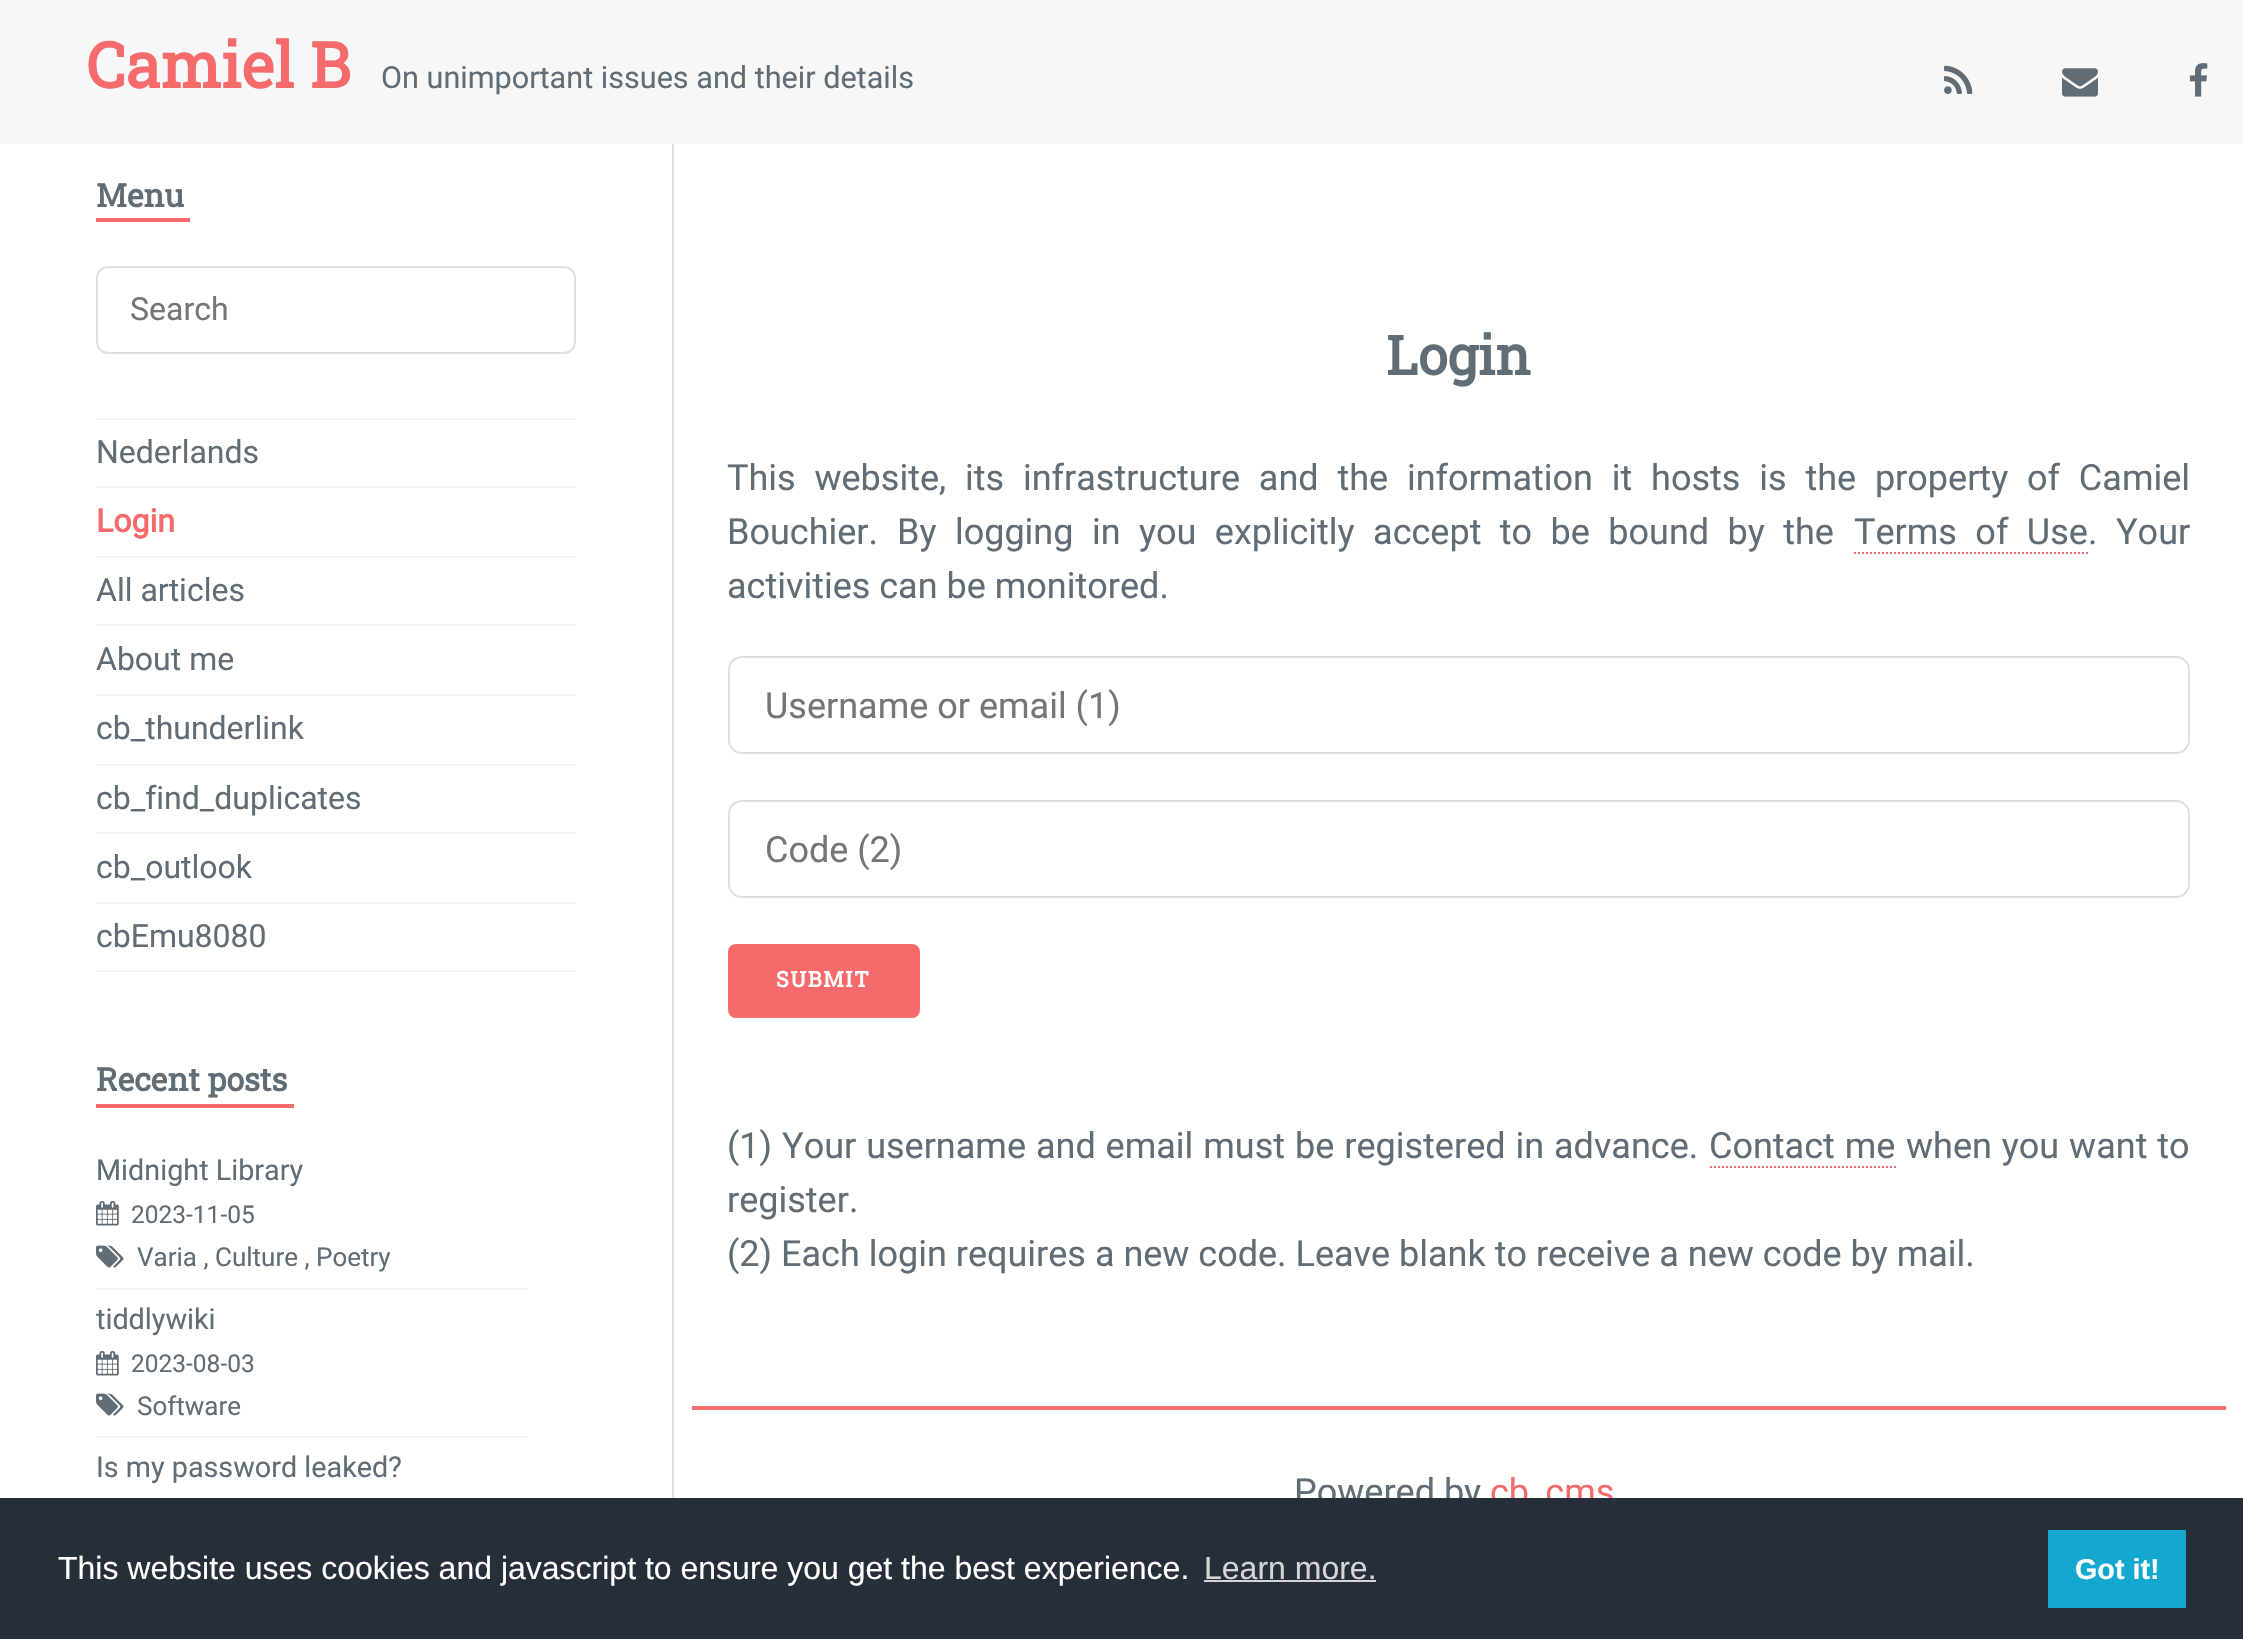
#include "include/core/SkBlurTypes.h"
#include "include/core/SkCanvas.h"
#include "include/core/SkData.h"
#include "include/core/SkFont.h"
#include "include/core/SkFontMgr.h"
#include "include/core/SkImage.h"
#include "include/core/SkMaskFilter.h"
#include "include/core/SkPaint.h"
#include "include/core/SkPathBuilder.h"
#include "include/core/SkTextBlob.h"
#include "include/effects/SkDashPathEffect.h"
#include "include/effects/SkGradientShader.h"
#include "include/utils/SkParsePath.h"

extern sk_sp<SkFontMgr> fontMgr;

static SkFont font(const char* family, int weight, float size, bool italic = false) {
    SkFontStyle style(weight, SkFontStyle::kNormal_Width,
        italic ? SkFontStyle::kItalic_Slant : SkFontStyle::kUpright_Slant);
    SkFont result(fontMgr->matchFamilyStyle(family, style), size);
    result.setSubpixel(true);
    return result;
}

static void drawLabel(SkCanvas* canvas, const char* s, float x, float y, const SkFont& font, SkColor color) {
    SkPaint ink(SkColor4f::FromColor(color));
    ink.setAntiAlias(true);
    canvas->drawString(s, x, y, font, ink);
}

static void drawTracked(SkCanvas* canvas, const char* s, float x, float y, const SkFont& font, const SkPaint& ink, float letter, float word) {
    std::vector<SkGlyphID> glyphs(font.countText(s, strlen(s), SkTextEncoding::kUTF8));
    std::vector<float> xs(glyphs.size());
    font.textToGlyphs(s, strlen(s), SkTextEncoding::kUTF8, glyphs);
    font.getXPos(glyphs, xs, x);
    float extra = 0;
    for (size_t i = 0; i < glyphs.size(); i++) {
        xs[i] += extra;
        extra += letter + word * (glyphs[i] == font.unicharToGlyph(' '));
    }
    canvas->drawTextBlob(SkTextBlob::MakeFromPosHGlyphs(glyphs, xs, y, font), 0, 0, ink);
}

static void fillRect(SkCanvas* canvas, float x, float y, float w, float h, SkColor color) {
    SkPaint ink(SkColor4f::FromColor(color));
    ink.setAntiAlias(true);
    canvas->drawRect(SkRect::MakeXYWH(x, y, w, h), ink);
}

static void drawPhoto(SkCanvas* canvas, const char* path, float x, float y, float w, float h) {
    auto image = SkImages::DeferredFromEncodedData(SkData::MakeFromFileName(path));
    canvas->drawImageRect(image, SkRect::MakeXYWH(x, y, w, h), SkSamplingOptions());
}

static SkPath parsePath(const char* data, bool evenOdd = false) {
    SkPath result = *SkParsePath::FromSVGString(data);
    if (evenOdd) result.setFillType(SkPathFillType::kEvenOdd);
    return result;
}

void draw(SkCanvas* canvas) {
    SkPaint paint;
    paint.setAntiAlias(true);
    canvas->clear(0xFFFFFFFF);
    fillRect(canvas, 0, 0, 2243, 144, 0xFFF7F7F7);
    SkFont font1 = font("Roboto Slab", 700, 63);
    drawLabel(canvas, "Camiel B", 86, 88, font1, 0xFFF56A6A);
    SkFont font2 = font("Roboto", 400, 30.6f);
    drawLabel(canvas, "On unimportant issues and their details", 381, 88, font2, 0xFF606C76);
    drawPhoto(canvas, "assets/img1.png", 1944, 65, 29, 29);
    drawPhoto(canvas, "assets/img2.png", 2062, 68, 36, 29);
    drawPhoto(canvas, "assets/img3.png", 2189, 63, 19, 34);
    fillRect(canvas, 672, 144, 2, 1354, 0xFFDDE1E3);
    fillRect(canvas, 96, 218, 94, 4, 0xFFF56A6A);
    SkFont font3 = font("Roboto Slab", 700, 32);
    drawLabel(canvas, "Menu", 96, 207, font3, 0xFF606C76);
    paint.setStroke(true);
    paint.setStrokeWidth(2);
    paint.setColor(0xFFDDE1E3);
    canvas->drawRoundRect(SkRect::MakeXYWH(97, 267, 478, 86), 11, 11, paint);
    SkFont font4 = font("Roboto", 400, 32);
    drawLabel(canvas, "Search", 130, 320, font4, 0xFF757575);
    fillRect(canvas, 96, 418, 480, 2, 0xFFF4F5F6);
    drawLabel(canvas, "Nederlands", 96, 463, font4, 0xFF606C76);
    fillRect(canvas, 96, 486, 480, 2, 0xFFF4F5F6);
    SkFont font5 = font("Roboto", 700, 32);
    drawLabel(canvas, "Login", 96, 532, font5, 0xFFF56A6A);
    fillRect(canvas, 96, 556, 480, 2, 0xFFF4F5F6);
    drawLabel(canvas, "All articles", 96, 601, font4, 0xFF606C76);
    fillRect(canvas, 96, 624, 480, 2, 0xFFF4F5F6);
    drawLabel(canvas, "About me", 96, 670, font4, 0xFF606C76);
    fillRect(canvas, 96, 694, 480, 2, 0xFFF4F5F6);
    drawLabel(canvas, "cb_thunderlink", 96, 739, font4, 0xFF606C76);
    fillRect(canvas, 96, 764, 480, 2, 0xFFF4F5F6);
    drawLabel(canvas, "cb_find_duplicates", 96, 809, font4, 0xFF606C76);
    fillRect(canvas, 96, 832, 480, 2, 0xFFF4F5F6);
    drawLabel(canvas, "cb_outlook", 96, 878, font4, 0xFF606C76);
    fillRect(canvas, 96, 902, 480, 2, 0xFFF4F5F6);
    drawLabel(canvas, "cbEmu8080", 96, 947, font4, 0xFF606C76);
    fillRect(canvas, 96, 970, 480, 2, 0xFFF4F5F6);
    fillRect(canvas, 96, 1104, 198, 4, 0xFFF56A6A);
    drawLabel(canvas, "Recent posts", 96, 1091, font3, 0xFF606C76);
    SkFont font6 = font("Roboto", 400, 28.75f);
    drawLabel(canvas, "Midnight Library", 96, 1180, font6, 0xFF606C76);
    drawPhoto(canvas, "assets/img4.png", 96, 1201, 23, 25);
    SkFont font7 = font("Roboto", 400, 24.5f);
    drawLabel(canvas, "2023-11-05", 131, 1223, font7, 0xFF606C76);
    drawPhoto(canvas, "assets/img5.png", 96, 1245, 28, 23);
    SkFont font8 = font("Roboto", 400, 26);
    drawLabel(canvas, "Varia , Culture , Poetry", 137, 1266, font8, 0xFF606C76);
    fillRect(canvas, 96, 1288, 432, 2, 0xFFF4F5F6);
    drawLabel(canvas, "tiddlywiki", 96, 1329, font6, 0xFF606C76);
    drawPhoto(canvas, "assets/img4.png", 96, 1351, 23, 25);
    drawLabel(canvas, "2023-08-03", 131, 1372, font7, 0xFF606C76);
    drawPhoto(canvas, "assets/img5.png", 96, 1393, 28, 23);
    drawLabel(canvas, "Software", 137, 1415, font8, 0xFF606C76);
    fillRect(canvas, 96, 1436, 432, 2, 0xFFF4F5F6);
    drawLabel(canvas, "Is my password leaked?", 96, 1477, font6, 0xFF606C76);
    SkFont font9 = font("Roboto Slab", 700, 54);
    drawLabel(canvas, "Login", 1386, 375, font9, 0xFF606C76);
    SkFont font10 = font("Roboto", 400, 36);
    paint.setStroke(false);
    paint.setColor(0xFF606C76);
    drawTracked(canvas, "This website, its infrastructure and the information it hosts is the property of Camiel", 727, 490, font10, paint, 0, 9.9f);
    drawLabel(canvas, "Bouchier.", 727, 544, font10, 0xFF606C76);
    drawTracked(canvas, "By logging in you explicitly accept to be bound by the", 897, 544, font10, paint, 0, 9.5f);
    drawTracked(canvas, "Terms of Use", 1854, 544, font10, paint, 0, 9.5f);
    paint.setStroke(true);
    paint.setColor(0xFFF56A6A);
    paint.setPathEffect(SkDashPathEffect::Make({{2, 2}}, 0));
    canvas->drawPath(parsePath("M1854 553H2088"), paint);
    paint.setPathEffect(nullptr);
    drawLabel(canvas, ".", 2088, 544, font10, 0xFF606C76);
    drawLabel(canvas, "Your", 2116, 544, font10, 0xFF606C76);
    drawLabel(canvas, "activities can be monitored.", 727, 598, font10, 0xFF606C76);
    paint.setColor(0xFFDDE1E3);
    canvas->drawRoundRect(SkRect::MakeXYWH(729, 657, 1460, 96), 13, 13, paint);
    drawLabel(canvas, "Username or email (1)", 765, 718, font10, 0xFF757575);
    canvas->drawRoundRect(SkRect::MakeXYWH(729, 801, 1460, 96), 13, 13, paint);
    drawLabel(canvas, "Code (2)", 765, 862, font10, 0xFF757575);
    paint.setStroke(false);
    paint.setColor(0xFFF56A6A);
    canvas->drawRoundRect(SkRect::MakeXYWH(730, 946, 188, 70), 6, 6, paint);
    paint.setStroke(true);
    paint.setStrokeWidth(4);
    canvas->drawRoundRect(SkRect::MakeXYWH(730, 946, 188, 70), 6, 6, paint);
    SkFont font11 = font("Roboto Slab", 700, 21.5f);
    paint.setStroke(false);
    paint.setColor(0xFFFFFFFF);
    drawTracked(canvas, "SUBMIT", 776, 987, font11, paint, 1.5f, 0);
    paint.setColor(0xFF606C76);
    drawTracked(canvas, "(1) Your username and email must be registered in advance.", 727, 1158, font10, paint, 0, 1);
    drawTracked(canvas, "Contact me", 1709, 1158, font10, paint, 0, 1);
    paint.setStroke(true);
    paint.setStrokeWidth(2);
    paint.setColor(0xFFF56A6A);
    paint.setPathEffect(SkDashPathEffect::Make({{2, 2}}, 0));
    canvas->drawPath(parsePath("M1710 1167H1896"), paint);
    paint.setPathEffect(nullptr);
    paint.setStroke(false);
    paint.setColor(0xFF606C76);
    drawTracked(canvas, "when you want to", 1906, 1158, font10, paint, 0, 1);
    drawLabel(canvas, "register.", 727, 1212, font10, 0xFF606C76);
    drawLabel(canvas, "(2) Each login requires a new code. Leave blank to receive a new code by mail.", 727, 1266, font10, 0xFF606C76);
    fillRect(canvas, 692, 1406, 1534, 4, 0xFFF56A6A);
    drawLabel(canvas, "Powered by", 1294, 1504, font10, 0xFF606C76);
    drawLabel(canvas, "cb_cms", 1490, 1504, font10, 0xFFF56A6A);
    fillRect(canvas, 0, 1498, 2243, 141, 0xFF252E39);
    SkFont font12 = font("Liberation Sans", 400, 32);
    drawLabel(canvas, "This website uses cookies and javascript to ensure you get the best experience.", 58, 1579, font12, 0xFFFFFFFF);
    drawLabel(canvas, "Learn more.", 1204, 1579, font12, 0xFFD3D5D7);
    fillRect(canvas, 1204, 1580, 172, 2, 0xFFD3D5D7);
    fillRect(canvas, 2048, 1530, 138, 78, 0xFF14A7D0);
    SkFont font13 = font("Liberation Sans", 700, 28.75f);
    drawLabel(canvas, "Got it!", 2075, 1579, font13, 0xFFFFFFFF);
}
